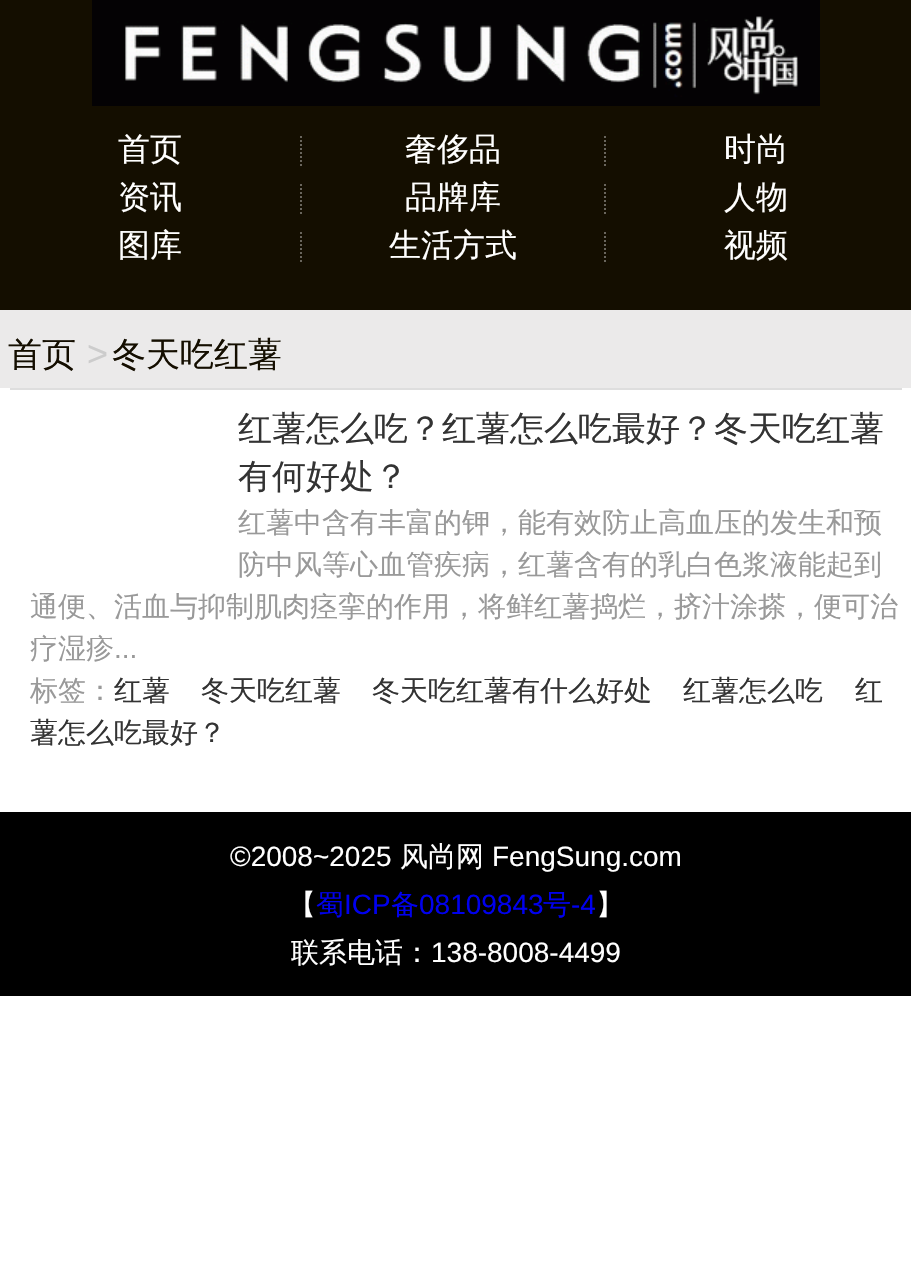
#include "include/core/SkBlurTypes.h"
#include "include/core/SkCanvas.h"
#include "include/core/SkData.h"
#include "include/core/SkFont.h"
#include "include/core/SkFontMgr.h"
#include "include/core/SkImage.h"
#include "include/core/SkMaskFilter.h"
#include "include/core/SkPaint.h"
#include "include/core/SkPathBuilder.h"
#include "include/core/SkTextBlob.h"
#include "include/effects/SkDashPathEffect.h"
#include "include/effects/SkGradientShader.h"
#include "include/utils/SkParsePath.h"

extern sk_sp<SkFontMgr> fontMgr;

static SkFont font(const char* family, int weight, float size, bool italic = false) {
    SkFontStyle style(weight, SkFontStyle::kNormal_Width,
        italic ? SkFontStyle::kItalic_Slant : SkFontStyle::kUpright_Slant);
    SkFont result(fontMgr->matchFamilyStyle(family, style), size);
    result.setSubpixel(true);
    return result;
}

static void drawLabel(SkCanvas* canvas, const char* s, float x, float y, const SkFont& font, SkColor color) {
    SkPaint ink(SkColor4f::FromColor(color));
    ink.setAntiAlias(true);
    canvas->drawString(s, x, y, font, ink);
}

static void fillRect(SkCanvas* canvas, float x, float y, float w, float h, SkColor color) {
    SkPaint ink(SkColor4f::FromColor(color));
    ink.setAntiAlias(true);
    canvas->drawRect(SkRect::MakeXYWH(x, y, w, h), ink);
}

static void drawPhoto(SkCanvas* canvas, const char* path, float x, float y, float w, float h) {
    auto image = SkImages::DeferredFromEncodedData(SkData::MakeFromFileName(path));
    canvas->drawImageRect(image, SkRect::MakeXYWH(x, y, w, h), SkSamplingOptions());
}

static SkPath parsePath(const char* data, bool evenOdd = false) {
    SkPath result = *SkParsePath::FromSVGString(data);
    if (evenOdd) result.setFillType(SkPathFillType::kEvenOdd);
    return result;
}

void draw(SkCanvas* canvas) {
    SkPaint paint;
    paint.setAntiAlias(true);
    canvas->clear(0xFFFFFFFF);
    fillRect(canvas, 0, 0, 911, 310, 0xFF140E00);
    drawPhoto(canvas, "assets/img1.png", 92, 0, 728, 106);
    paint.setStroke(true);
    paint.setStrokeWidth(2);
    paint.setColor(0xFF69655C);
    paint.setPathEffect(SkDashPathEffect::Make({{2, 2}}, 0));
    canvas->drawPath(parsePath("M301 136V168"), paint);
    paint.setPathEffect(nullptr);
    SkFont font1 = font("WenQuanYi Zen Hei", 500, 32);
    drawLabel(canvas, "首页", 118, 160, font1, 0xFFFFFFFF);
    paint.setPathEffect(SkDashPathEffect::Make({{2, 2}}, 0));
    canvas->drawPath(parsePath("M605 136V168"), paint);
    paint.setPathEffect(nullptr);
    drawLabel(canvas, "奢侈品", 405, 160, font1, 0xFFFFFFFF);
    drawLabel(canvas, "时尚", 724, 160, font1, 0xFFFFFFFF);
    paint.setPathEffect(SkDashPathEffect::Make({{2, 2}}, 0));
    canvas->drawPath(parsePath("M301 184V216"), paint);
    paint.setPathEffect(nullptr);
    drawLabel(canvas, "资讯", 118, 208, font1, 0xFFFFFFFF);
    paint.setPathEffect(SkDashPathEffect::Make({{2, 2}}, 0));
    canvas->drawPath(parsePath("M605 184V216"), paint);
    paint.setPathEffect(nullptr);
    drawLabel(canvas, "品牌库", 405, 208, font1, 0xFFFFFFFF);
    drawLabel(canvas, "人物", 724, 208, font1, 0xFFFFFFFF);
    paint.setPathEffect(SkDashPathEffect::Make({{2, 2}}, 0));
    canvas->drawPath(parsePath("M301 232V264"), paint);
    paint.setPathEffect(nullptr);
    drawLabel(canvas, "图库", 118, 256, font1, 0xFFFFFFFF);
    paint.setPathEffect(SkDashPathEffect::Make({{2, 2}}, 0));
    canvas->drawPath(parsePath("M605 232V264"), paint);
    paint.setPathEffect(nullptr);
    drawLabel(canvas, "生活方式", 389, 256, font1, 0xFFFFFFFF);
    drawLabel(canvas, "视频", 724, 256, font1, 0xFFFFFFFF);
    fillRect(canvas, 0, 310, 911, 78, 0xFFEBEAEA);
    SkFont font2 = font("WenQuanYi Zen Hei", 500, 34);
    drawLabel(canvas, "首页", 8, 366, font2, 0xFF140E00);
    SkFont font3 = font("Liberation Sans", 400, 36);
    drawLabel(canvas, ">", 87, 366, font3, 0xFFCCCCCC);
    drawLabel(canvas, "冬天吃红薯", 112, 366, font2, 0xFF140E00);
    fillRect(canvas, 10, 388, 892, 2, 0xFFDEDEDE);
    drawLabel(canvas, "红薯怎么吃？红薯怎么吃最好？冬天吃红薯", 238, 440, font2, 0xFF333333);
    drawLabel(canvas, "有何好处？", 238, 488, font2, 0xFF333333);
    SkFont font4 = font("WenQuanYi Zen Hei", 500, 28);
    drawLabel(canvas, "红薯中含有丰富的钾，能有效防止高血压的发生和预", 238, 532, font4, 0xFF999999);
    drawLabel(canvas, "防中风等心血管疾病，红薯含有的乳白色浆液能起到", 238, 574, font4, 0xFF999999);
    drawLabel(canvas, "通便、活血与抑制肌肉痉挛的作用，将鲜红薯捣烂，挤汁涂搽，便可治", 30, 616, font4, 0xFF999999);
    drawLabel(canvas, "疗湿疹", 30, 658, font4, 0xFF999999);
    SkFont font5 = font("Liberation Sans", 400, 28);
    drawLabel(canvas, "...", 114, 658, font5, 0xFF999999);
    drawLabel(canvas, "标签：", 30, 700, font4, 0xFF999999);
    drawLabel(canvas, "红薯", 114, 700, font4, 0xFF333333);
    drawLabel(canvas, "冬天吃红薯", 201, 700, font4, 0xFF333333);
    drawLabel(canvas, "冬天吃红薯有什么好处", 372, 700, font4, 0xFF333333);
    drawLabel(canvas, "红薯怎么吃", 683, 700, font4, 0xFF333333);
    drawLabel(canvas, "红", 855, 700, font4, 0xFF333333);
    drawLabel(canvas, "薯怎么吃最好？", 30, 742, font4, 0xFF333333);
    fillRect(canvas, 0, 812, 911, 184, 0xFF000000);
    drawLabel(canvas, "©2008~2025", 230, 866, font5, 0xFFFFFFFF);
    drawLabel(canvas, "风尚网", 400, 866, font4, 0xFFFFFFFF);
    drawLabel(canvas, "FengSung.com", 492, 866, font5, 0xFFFFFFFF);
    drawLabel(canvas, "【", 288, 914, font4, 0xFFFFFFFF);
    drawLabel(canvas, "蜀", 316, 914, font4, 0xFF0000EE);
    drawLabel(canvas, "ICP", 344, 914, font5, 0xFF0000EE);
    drawLabel(canvas, "备", 391, 914, font4, 0xFF0000EE);
    drawLabel(canvas, "08109843", 419, 914, font5, 0xFF0000EE);
    drawLabel(canvas, "号", 543, 914, font4, 0xFF0000EE);
    drawLabel(canvas, "-4", 571, 914, font5, 0xFF0000EE);
    drawLabel(canvas, "】", 596, 914, font4, 0xFFFFFFFF);
    drawLabel(canvas, "联系电话：", 291, 962, font4, 0xFFFFFFFF);
    drawLabel(canvas, "138-8008-4499", 431, 962, font5, 0xFFFFFFFF);
}
